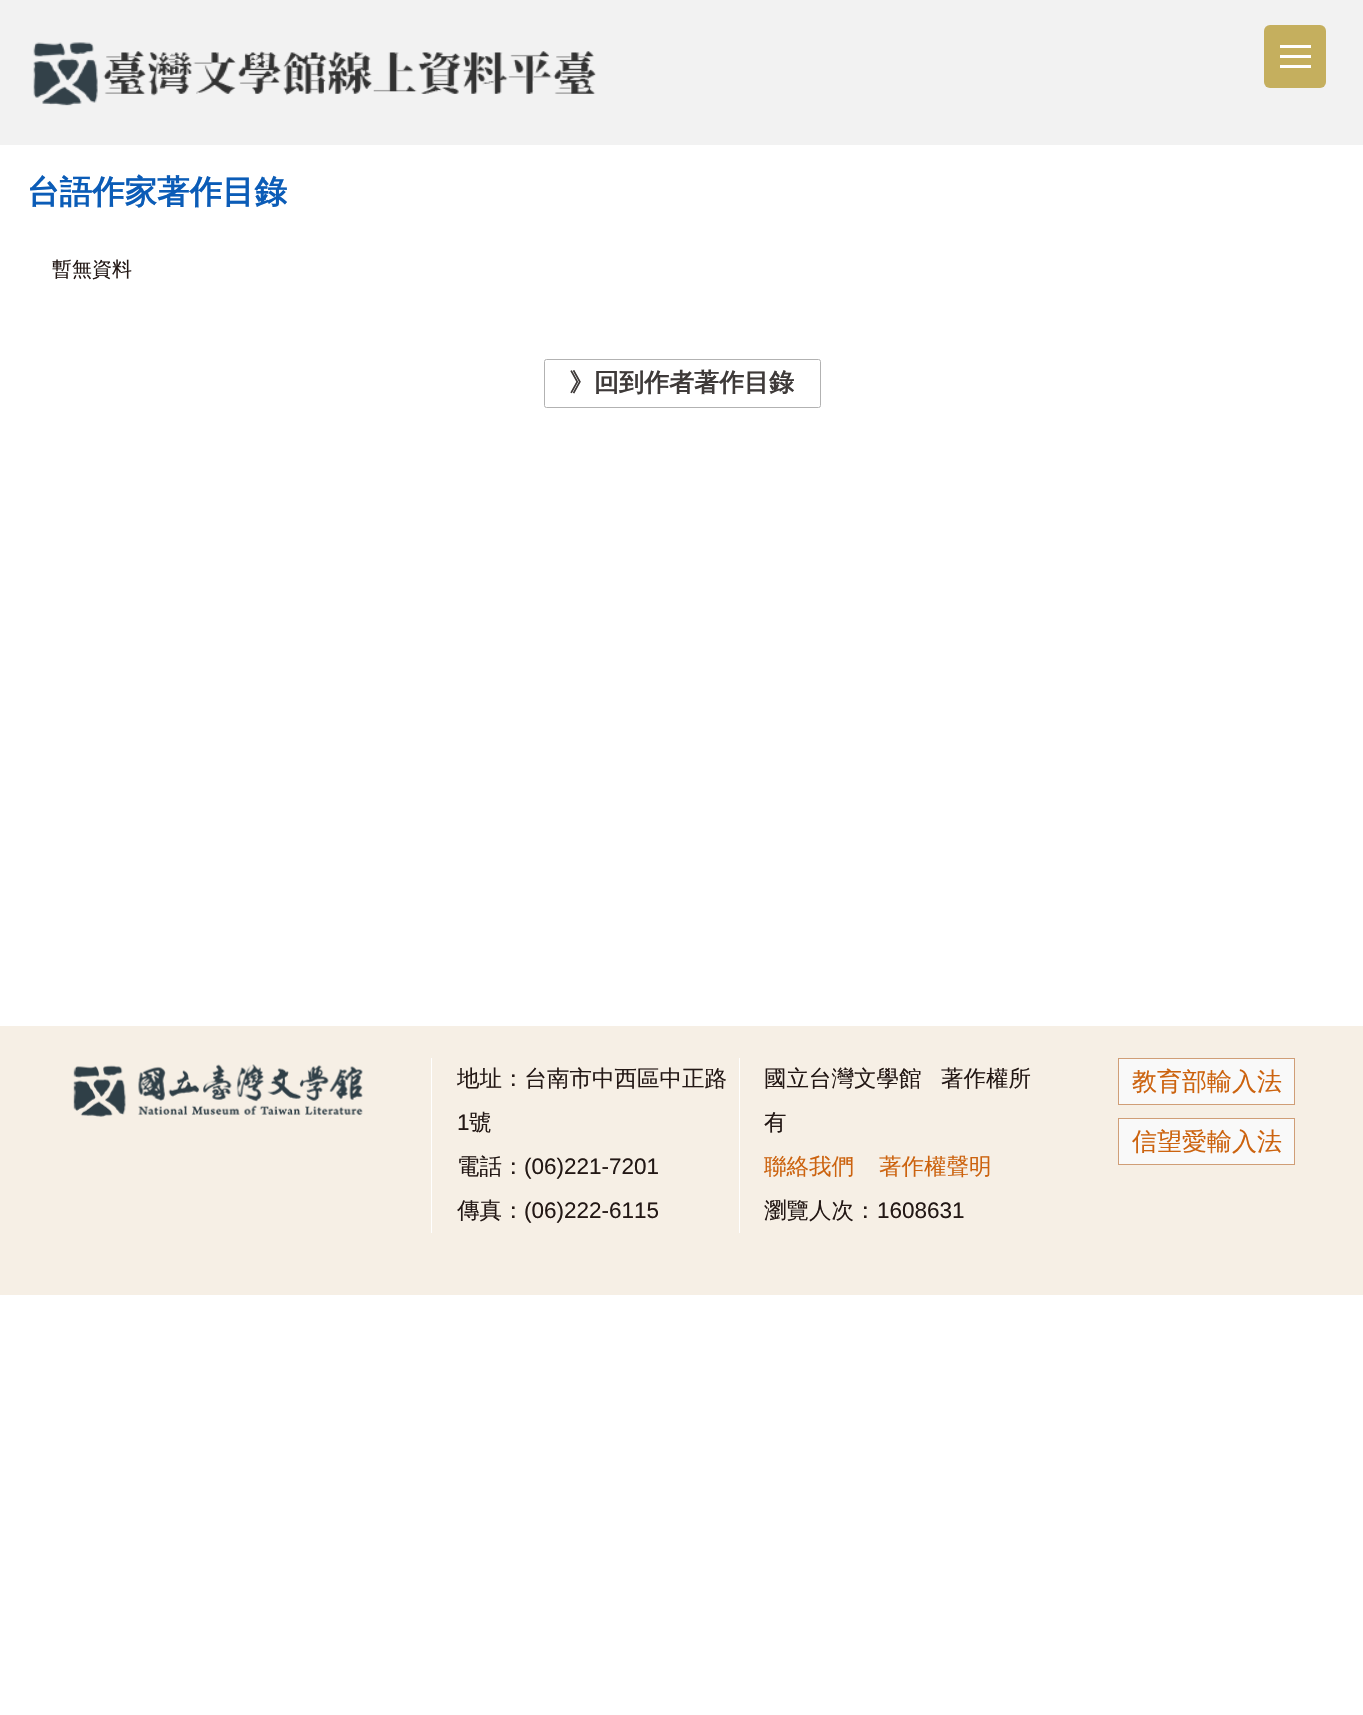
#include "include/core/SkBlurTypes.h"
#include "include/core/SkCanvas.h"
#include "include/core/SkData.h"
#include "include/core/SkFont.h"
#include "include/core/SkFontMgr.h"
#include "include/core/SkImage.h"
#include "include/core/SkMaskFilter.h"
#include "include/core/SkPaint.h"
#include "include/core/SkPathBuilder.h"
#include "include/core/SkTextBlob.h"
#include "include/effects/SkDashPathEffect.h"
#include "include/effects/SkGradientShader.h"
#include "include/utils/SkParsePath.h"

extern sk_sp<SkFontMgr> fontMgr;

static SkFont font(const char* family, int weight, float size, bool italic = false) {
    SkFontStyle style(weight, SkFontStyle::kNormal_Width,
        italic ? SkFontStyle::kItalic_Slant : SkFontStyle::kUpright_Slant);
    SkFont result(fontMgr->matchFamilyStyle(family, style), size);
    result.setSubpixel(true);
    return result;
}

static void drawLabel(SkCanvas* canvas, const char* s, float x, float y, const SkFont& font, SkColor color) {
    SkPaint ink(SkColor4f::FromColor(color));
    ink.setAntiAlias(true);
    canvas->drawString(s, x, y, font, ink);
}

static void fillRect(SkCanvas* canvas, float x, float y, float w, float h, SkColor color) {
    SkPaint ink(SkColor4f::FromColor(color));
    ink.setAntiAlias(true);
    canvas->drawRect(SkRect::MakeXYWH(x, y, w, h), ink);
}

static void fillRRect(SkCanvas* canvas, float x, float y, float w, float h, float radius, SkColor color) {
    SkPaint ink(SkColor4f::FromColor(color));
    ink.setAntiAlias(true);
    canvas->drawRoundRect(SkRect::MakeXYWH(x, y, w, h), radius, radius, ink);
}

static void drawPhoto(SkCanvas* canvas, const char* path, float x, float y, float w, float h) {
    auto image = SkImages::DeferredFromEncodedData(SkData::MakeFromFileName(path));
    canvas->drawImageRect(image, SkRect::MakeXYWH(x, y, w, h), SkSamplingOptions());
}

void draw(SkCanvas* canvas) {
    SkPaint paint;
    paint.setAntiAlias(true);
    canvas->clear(0xFFFFFFFF);
    fillRect(canvas, 0, 0, 1363, 145, 0xFFF2F2F2);
    drawPhoto(canvas, "assets/img1.png", 33, 42, 563, 64);
    fillRRect(canvas, 1264, 25, 62, 63, 6, 0xFFC5AF5E);
    fillRect(canvas, 1280, 55, 31, 3, 0xFFFFFFFF);
    fillRect(canvas, 1280, 45, 31, 3, 0xFFFFFFFF);
    fillRect(canvas, 1280, 65, 31, 3, 0xFFFFFFFF);
    SkFont font1 = font("WenQuanYi Zen Hei", 700, 32.5f);
    drawLabel(canvas, "台語作家著作目錄", 27, 203, font1, 0xFF0B5CB7);
    SkFont font2 = font("WenQuanYi Zen Hei", 500, 20);
    drawLabel(canvas, "暫無資料", 52, 276, font2, 0xFF231815);
    paint.setStroke(true);
    paint.setStrokeWidth(1);
    paint.setColor(0xFFB2B2B2);
    canvas->drawRoundRect(SkRect::MakeXYWH(544.5f, 359.5f, 276, 48), 2, 2, paint);
    SkFont font3 = font("WenQuanYi Zen Hei", 700, 25);
    drawLabel(canvas, "》回到作者著作目錄", 569, 391, font3, 0xFF3E3A39);
    fillRect(canvas, 0, 1026, 1363, 269, 0xFFF6EFE5);
    drawPhoto(canvas, "assets/img2.png", 73, 1064, 290, 53);
    fillRect(canvas, 431, 1058, 1, 175, 0xFFFFFFFF);
    SkFont font4 = font("WenQuanYi Zen Hei", 500, 22.5f);
    drawLabel(canvas, "地址：台南市中西區中正路", 457, 1086, font4, 0xFF231815);
    SkFont font5 = font("Liberation Sans", 400, 22.5f);
    drawLabel(canvas, "1", 457, 1130, font5, 0xFF231815);
    drawLabel(canvas, "號", 469, 1130, font4, 0xFF231815);
    drawLabel(canvas, "電話：", 457, 1174, font4, 0xFF231815);
    drawLabel(canvas, "(06)221-7201", 524, 1174, font5, 0xFF231815);
    drawLabel(canvas, "傳真：", 457, 1218, font4, 0xFF231815);
    drawLabel(canvas, "(06)222-6115", 524, 1218, font5, 0xFF231815);
    fillRect(canvas, 739, 1058, 1, 175, 0xFFFFFFFF);
    drawLabel(canvas, "國立台灣文學館", 764, 1086, font4, 0xFF231815);
    drawLabel(canvas, "著作權所", 941, 1086, font4, 0xFF231815);
    drawLabel(canvas, "有", 764, 1130, font4, 0xFF231815);
    drawLabel(canvas, "聯絡我們", 764, 1174, font4, 0xFFCC630F);
    drawLabel(canvas, "著作權聲明", 879, 1174, font4, 0xFFCC630F);
    drawLabel(canvas, "瀏覽人次：", 764, 1218, font4, 0xFF231815);
    drawLabel(canvas, "1608631", 877, 1218, font5, 0xFF231815);
    paint.setStroke(false);
    paint.setColor(0xFFF9F9F9);
    canvas->drawRect(SkRect::MakeXYWH(1118.5f, 1058.5f, 176, 46), paint);
    paint.setStroke(true);
    paint.setColor(0xFFD09E77);
    canvas->drawRect(SkRect::MakeXYWH(1118.5f, 1058.5f, 176, 46), paint);
    SkFont font6 = font("WenQuanYi Zen Hei", 500, 25);
    drawLabel(canvas, "教育部輸入法", 1132, 1090, font6, 0xFFCC630F);
    paint.setStroke(false);
    paint.setColor(0xFFF9F9F9);
    canvas->drawRect(SkRect::MakeXYWH(1118.5f, 1118.5f, 176, 46), paint);
    paint.setStroke(true);
    paint.setColor(0xFFD09E77);
    canvas->drawRect(SkRect::MakeXYWH(1118.5f, 1118.5f, 176, 46), paint);
    drawLabel(canvas, "信望愛輸入法", 1132, 1150, font6, 0xFFCC630F);
}
